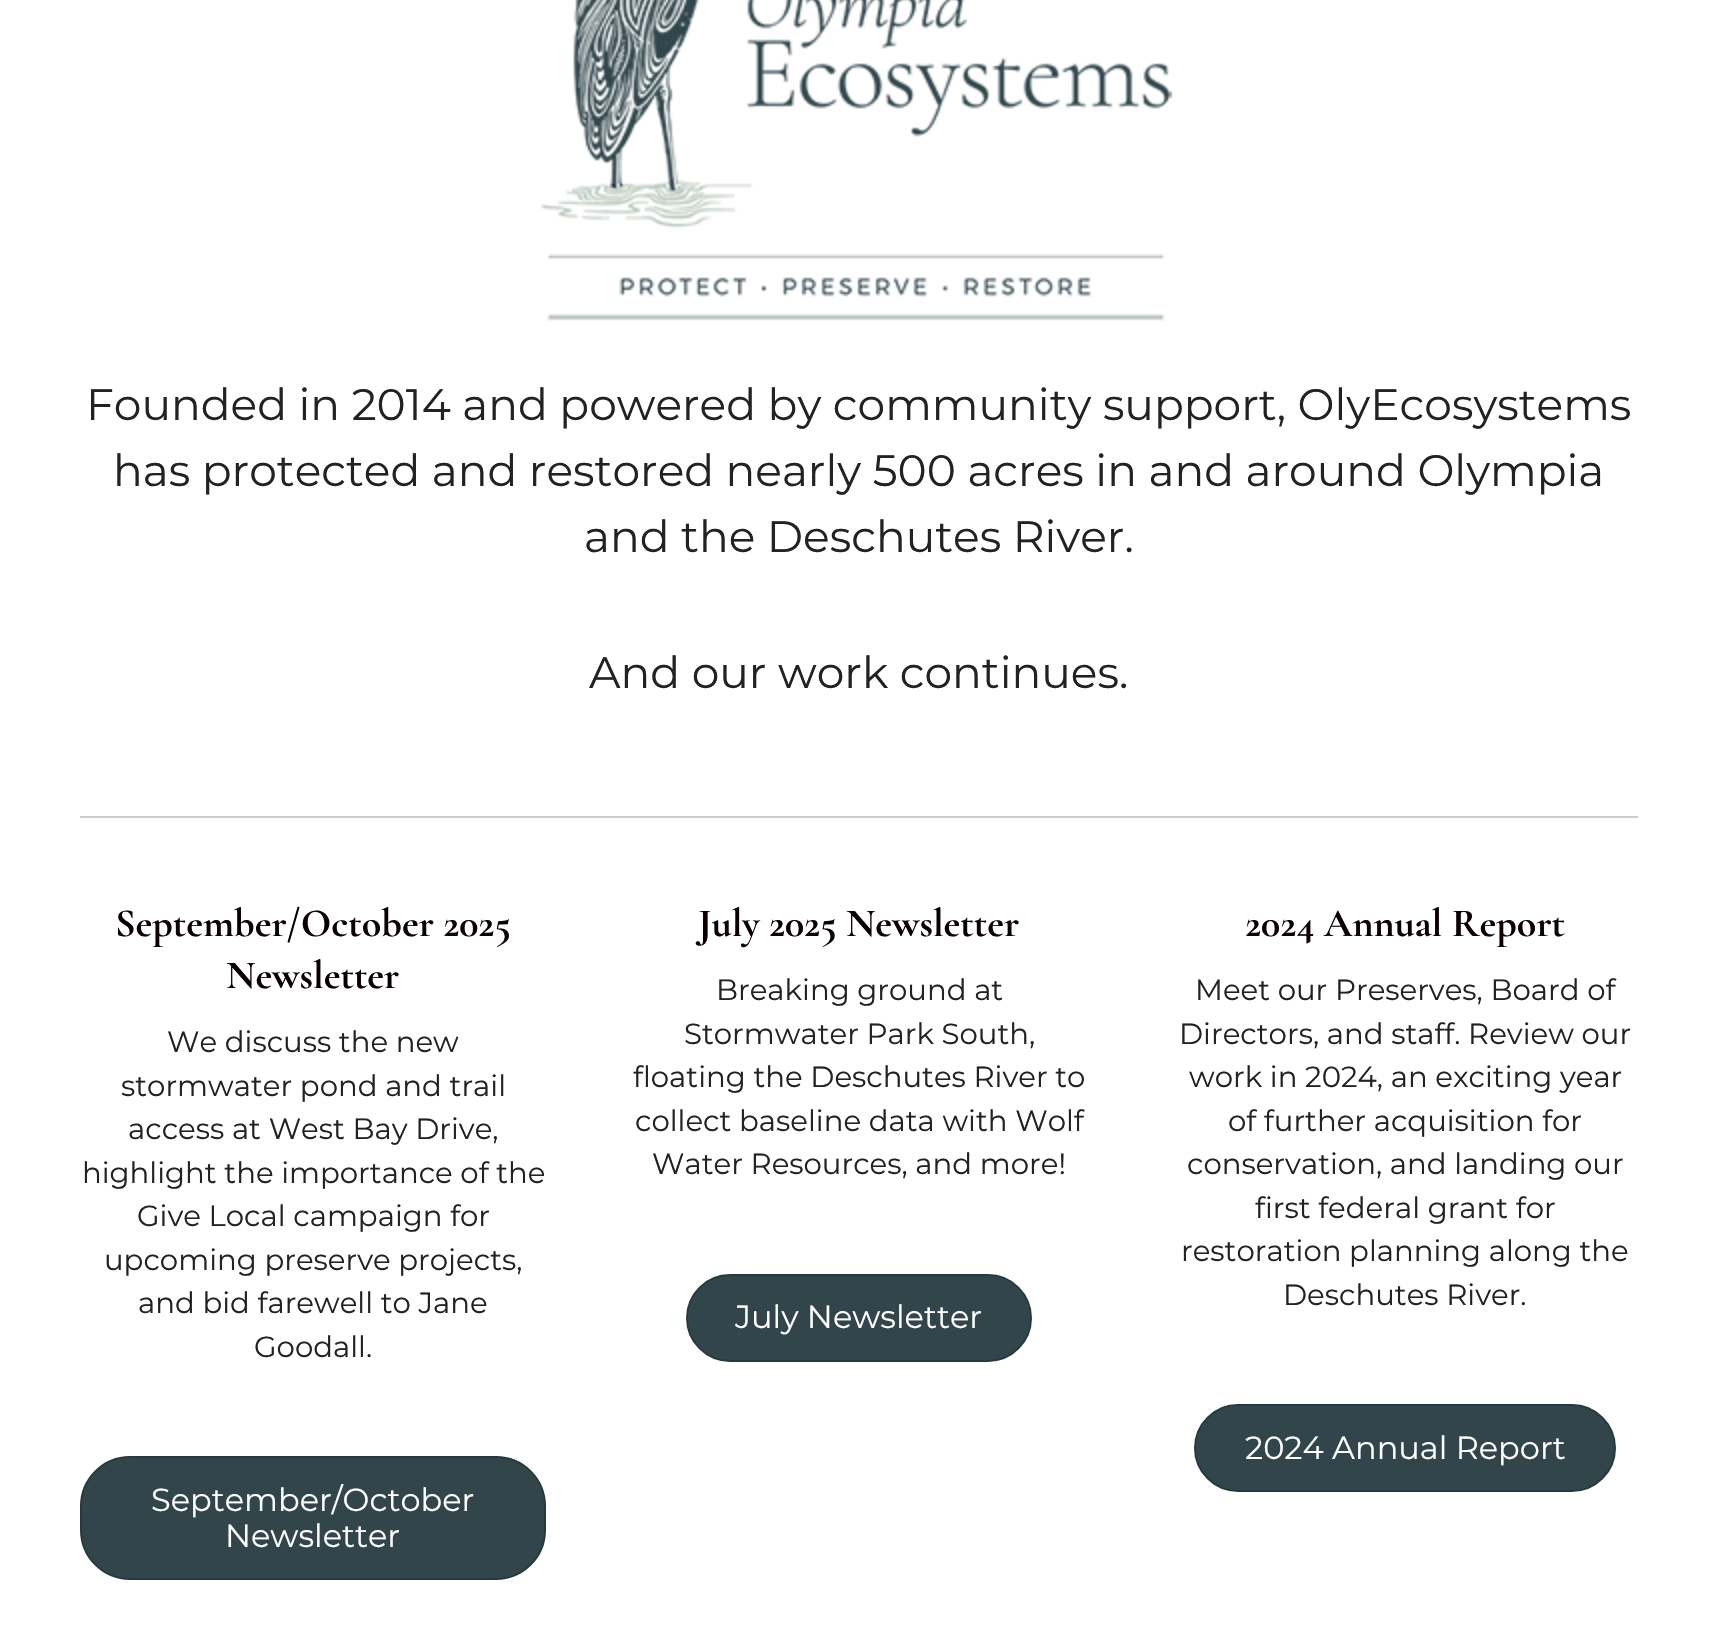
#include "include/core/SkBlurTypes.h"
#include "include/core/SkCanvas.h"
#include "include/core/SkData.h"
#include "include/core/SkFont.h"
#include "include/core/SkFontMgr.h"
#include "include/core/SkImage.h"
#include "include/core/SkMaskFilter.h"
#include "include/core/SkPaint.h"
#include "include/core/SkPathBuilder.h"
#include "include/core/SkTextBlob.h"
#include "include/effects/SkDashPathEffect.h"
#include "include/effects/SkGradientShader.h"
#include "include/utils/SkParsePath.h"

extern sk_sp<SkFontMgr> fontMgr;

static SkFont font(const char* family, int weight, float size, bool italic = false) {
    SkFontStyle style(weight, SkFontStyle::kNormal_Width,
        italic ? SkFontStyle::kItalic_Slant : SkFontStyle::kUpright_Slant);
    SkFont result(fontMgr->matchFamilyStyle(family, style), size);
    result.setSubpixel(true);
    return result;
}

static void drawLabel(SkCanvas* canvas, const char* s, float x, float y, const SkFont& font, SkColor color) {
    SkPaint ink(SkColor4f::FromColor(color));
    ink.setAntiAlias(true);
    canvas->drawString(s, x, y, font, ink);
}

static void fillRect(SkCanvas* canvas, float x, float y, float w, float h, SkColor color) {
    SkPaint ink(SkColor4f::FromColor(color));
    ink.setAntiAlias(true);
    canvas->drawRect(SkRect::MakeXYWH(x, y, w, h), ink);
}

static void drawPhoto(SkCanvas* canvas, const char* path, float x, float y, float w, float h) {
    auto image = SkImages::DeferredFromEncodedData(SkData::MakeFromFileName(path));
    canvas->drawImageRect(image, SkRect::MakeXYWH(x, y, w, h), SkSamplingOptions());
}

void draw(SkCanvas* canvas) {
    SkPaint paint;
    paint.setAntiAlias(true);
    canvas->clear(0xFFFFFFFF);
    drawPhoto(canvas, "assets/img1.png", 540, 0, 633, 321);
    SkFont font1 = font("Montserrat", 400, 44);
    drawLabel(canvas, "Founded in 2014 and powered by community support, OlyEcosystems", 86, 420, font1, 0xFF222222);
    drawLabel(canvas, "has protected and restored nearly 500 acres in and around Olympia", 113, 486, font1, 0xFF222222);
    drawLabel(canvas, "and the Deschutes River.", 584, 552, font1, 0xFF222222);
    drawLabel(canvas, "And our work continues.", 589, 688, font1, 0xFF222222);
    fillRect(canvas, 80, 816, 1558, 2, 0xFFCCCCCC);
    SkFont font2 = font("Cormorant Garamond", 300, 40);
    drawLabel(canvas, "September/October 2025", 115, 936, font2, 0xFF0A0001);
    drawLabel(canvas, "Newsletter", 226, 988, font2, 0xFF0A0001);
    SkFont font3 = font("Montserrat", 400, 29.2f);
    drawLabel(canvas, "We discuss the new", 167, 1052, font3, 0xFF222222);
    drawLabel(canvas, "stormwater pond and trail", 121, 1096, font3, 0xFF222222);
    drawLabel(canvas, "access at West Bay Drive,", 128, 1139, font3, 0xFF222222);
    drawLabel(canvas, "highlight the importance of the", 82, 1183, font3, 0xFF222222);
    drawLabel(canvas, "Give Local campaign for", 137, 1226, font3, 0xFF222222);
    drawLabel(canvas, "upcoming preserve projects,", 104, 1270, font3, 0xFF222222);
    drawLabel(canvas, "and bid farewell to Jane", 138, 1313, font3, 0xFF222222);
    drawLabel(canvas, "Goodall.", 254, 1357, font3, 0xFF222222);
    paint.setColor(0xFF32454B);
    canvas->drawRoundRect(SkRect::MakeXYWH(81, 1457, 464, 122), 49, 49, paint);
    paint.setStroke(true);
    paint.setStrokeWidth(2);
    paint.setColor(0xFF26393F);
    canvas->drawRoundRect(SkRect::MakeXYWH(81, 1457, 464, 122), 49, 49, paint);
    SkFont font4 = font("Montserrat", 400, 32);
    drawLabel(canvas, "September/October", 151, 1511, font4, 0xFFFFFFFF);
    drawLabel(canvas, "Newsletter", 225, 1547, font4, 0xFFFFFFFF);
    drawLabel(canvas, "July 2025 Newsletter", 698, 936, font2, 0xFF0A0001);
    drawLabel(canvas, "Breaking ground at", 716, 1000, font3, 0xFF222222);
    drawLabel(canvas, "Stormwater Park South,", 684, 1044, font3, 0xFF222222);
    drawLabel(canvas, "floating the Deschutes River to", 633, 1087, font3, 0xFF222222);
    drawLabel(canvas, "collect baseline data with Wolf", 635, 1131, font3, 0xFF222222);
    drawLabel(canvas, "Water Resources, and more!", 652, 1174, font3, 0xFF222222);
    paint.setStroke(false);
    paint.setColor(0xFF32454B);
    canvas->drawRoundRect(SkRect::MakeXYWH(687, 1275, 344, 86), 43, 43, paint);
    paint.setStroke(true);
    paint.setColor(0xFF26393F);
    canvas->drawRoundRect(SkRect::MakeXYWH(687, 1275, 344, 86), 43, 43, paint);
    drawLabel(canvas, "July Newsletter", 735, 1328, font4, 0xFFFFFFFF);
    drawLabel(canvas, "2024 Annual Report", 1245, 936, font2, 0xFF0A0001);
    drawLabel(canvas, "Meet our Preserves, Board of", 1195, 1000, font3, 0xFF222222);
    drawLabel(canvas, "Directors, and staff. Review our", 1179, 1044, font3, 0xFF222222);
    drawLabel(canvas, "work in 2024, an exciting year", 1189, 1087, font3, 0xFF222222);
    drawLabel(canvas, "of further acquisition for", 1228, 1131, font3, 0xFF222222);
    drawLabel(canvas, "conservation, and landing our", 1187, 1174, font3, 0xFF222222);
    drawLabel(canvas, "first federal grant for", 1255, 1218, font3, 0xFF222222);
    drawLabel(canvas, "restoration planning along the", 1181, 1261, font3, 0xFF222222);
    drawLabel(canvas, "Deschutes River.", 1283, 1305, font3, 0xFF222222);
    paint.setStroke(false);
    paint.setColor(0xFF32454B);
    canvas->drawRoundRect(SkRect::MakeXYWH(1195, 1405, 420, 86), 43, 43, paint);
    paint.setStroke(true);
    paint.setColor(0xFF26393F);
    canvas->drawRoundRect(SkRect::MakeXYWH(1195, 1405, 420, 86), 43, 43, paint);
    drawLabel(canvas, "2024 Annual Report", 1245, 1459, font4, 0xFFFFFFFF);
}
